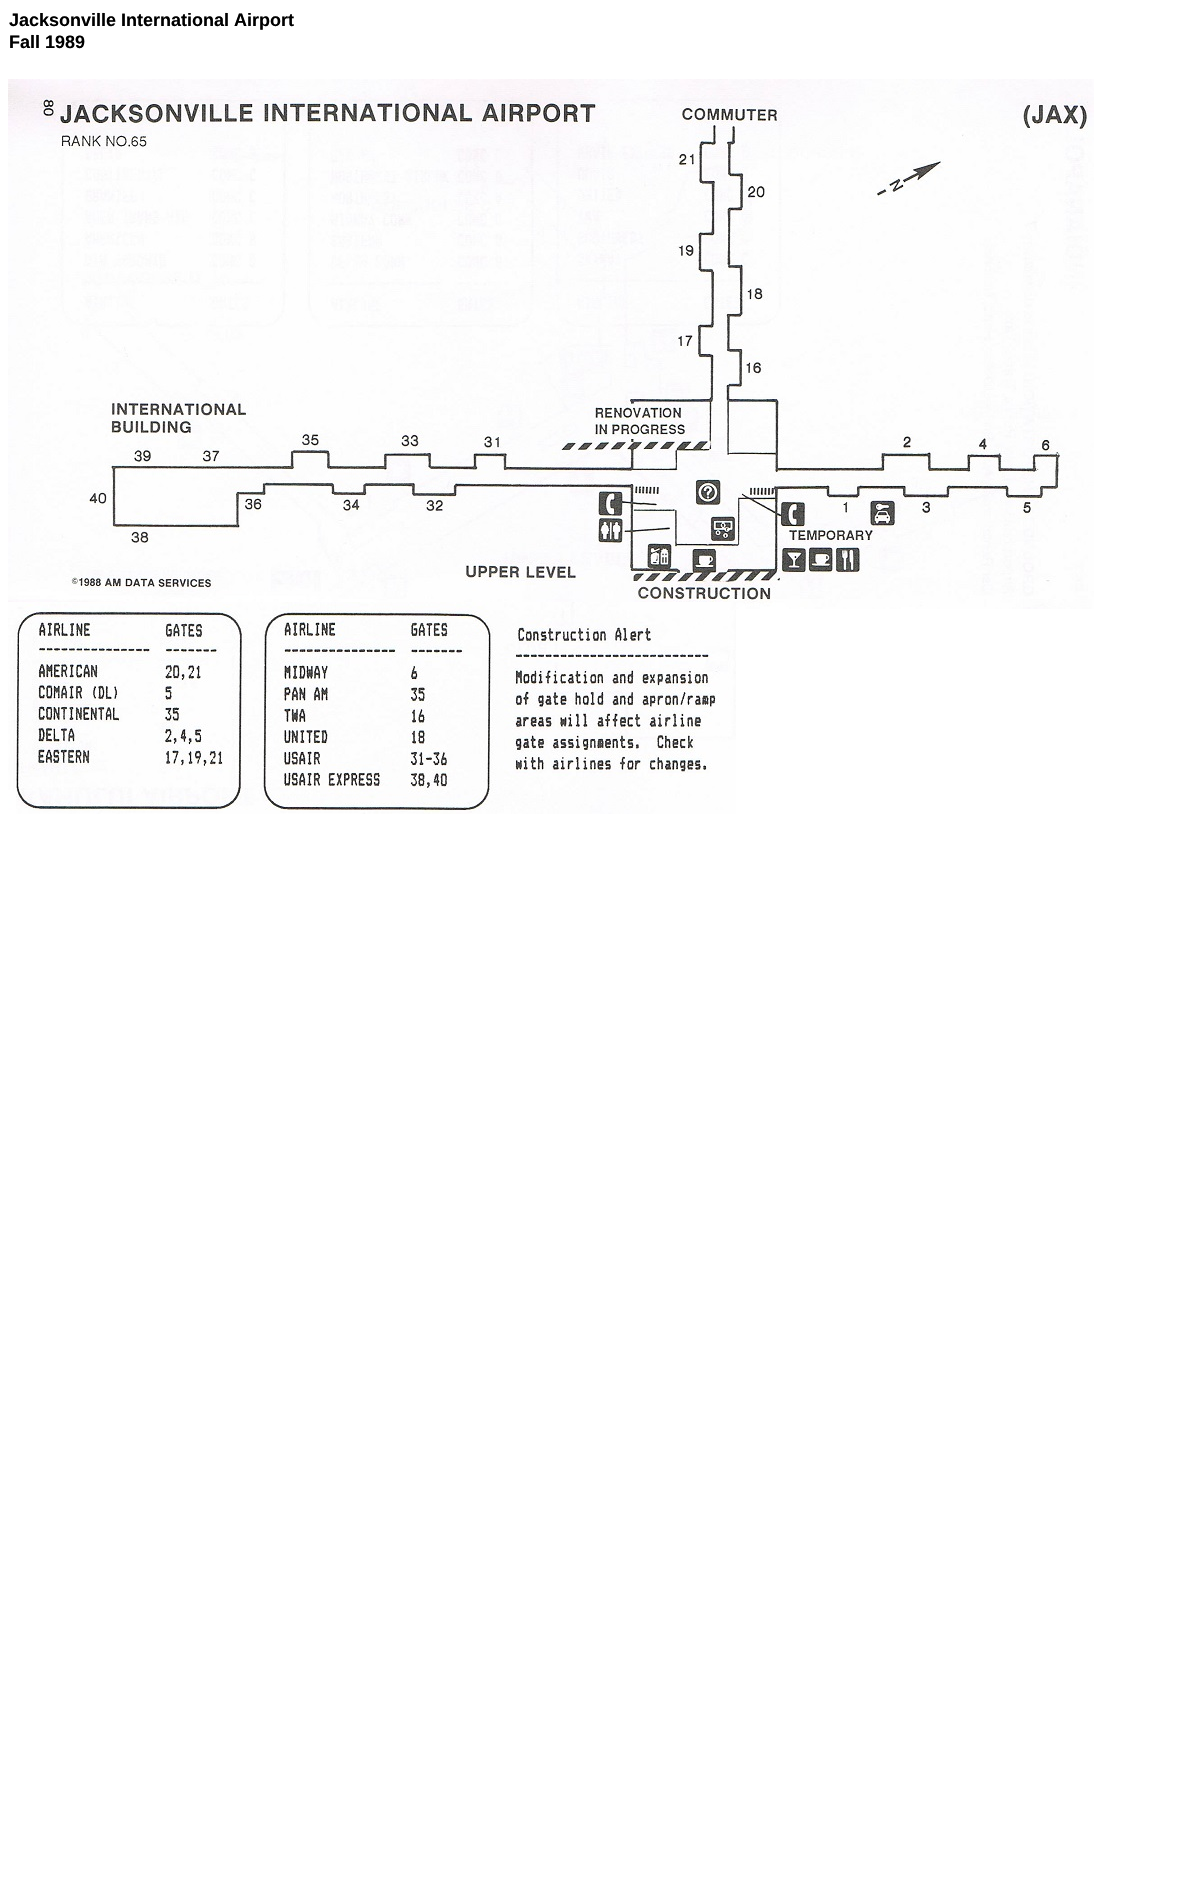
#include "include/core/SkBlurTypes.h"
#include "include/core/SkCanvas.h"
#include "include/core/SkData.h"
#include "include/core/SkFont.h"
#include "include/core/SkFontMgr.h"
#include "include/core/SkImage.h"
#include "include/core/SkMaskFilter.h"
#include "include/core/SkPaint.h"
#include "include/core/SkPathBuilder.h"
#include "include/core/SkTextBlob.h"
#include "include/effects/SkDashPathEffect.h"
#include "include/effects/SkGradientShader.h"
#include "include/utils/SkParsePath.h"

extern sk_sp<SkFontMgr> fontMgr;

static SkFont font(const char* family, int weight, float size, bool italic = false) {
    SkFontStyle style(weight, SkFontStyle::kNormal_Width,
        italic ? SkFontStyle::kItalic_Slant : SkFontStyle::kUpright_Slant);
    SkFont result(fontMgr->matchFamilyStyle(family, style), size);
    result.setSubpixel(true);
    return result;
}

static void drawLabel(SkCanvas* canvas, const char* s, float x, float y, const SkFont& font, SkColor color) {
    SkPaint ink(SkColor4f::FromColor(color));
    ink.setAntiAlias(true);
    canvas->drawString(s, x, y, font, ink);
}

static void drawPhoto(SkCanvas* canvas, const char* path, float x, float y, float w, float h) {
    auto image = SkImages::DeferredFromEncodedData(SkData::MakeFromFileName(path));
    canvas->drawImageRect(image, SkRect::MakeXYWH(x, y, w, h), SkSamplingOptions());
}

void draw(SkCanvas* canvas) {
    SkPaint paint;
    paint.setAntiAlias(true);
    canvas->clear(0xFFFFFFFF);
    SkFont font1 = font("Liberation Sans", 700, 18);
    drawLabel(canvas, "Jacksonville International Airport", 9, 26, font1, 0xFF000000);
    drawLabel(canvas, "Fall 1989", 9, 48, font1, 0xFF000000);
    drawPhoto(canvas, "assets/img1.png", 8, 79, 1086, 530);
    drawPhoto(canvas, "assets/img2.png", 8, 602, 728, 212);
}
